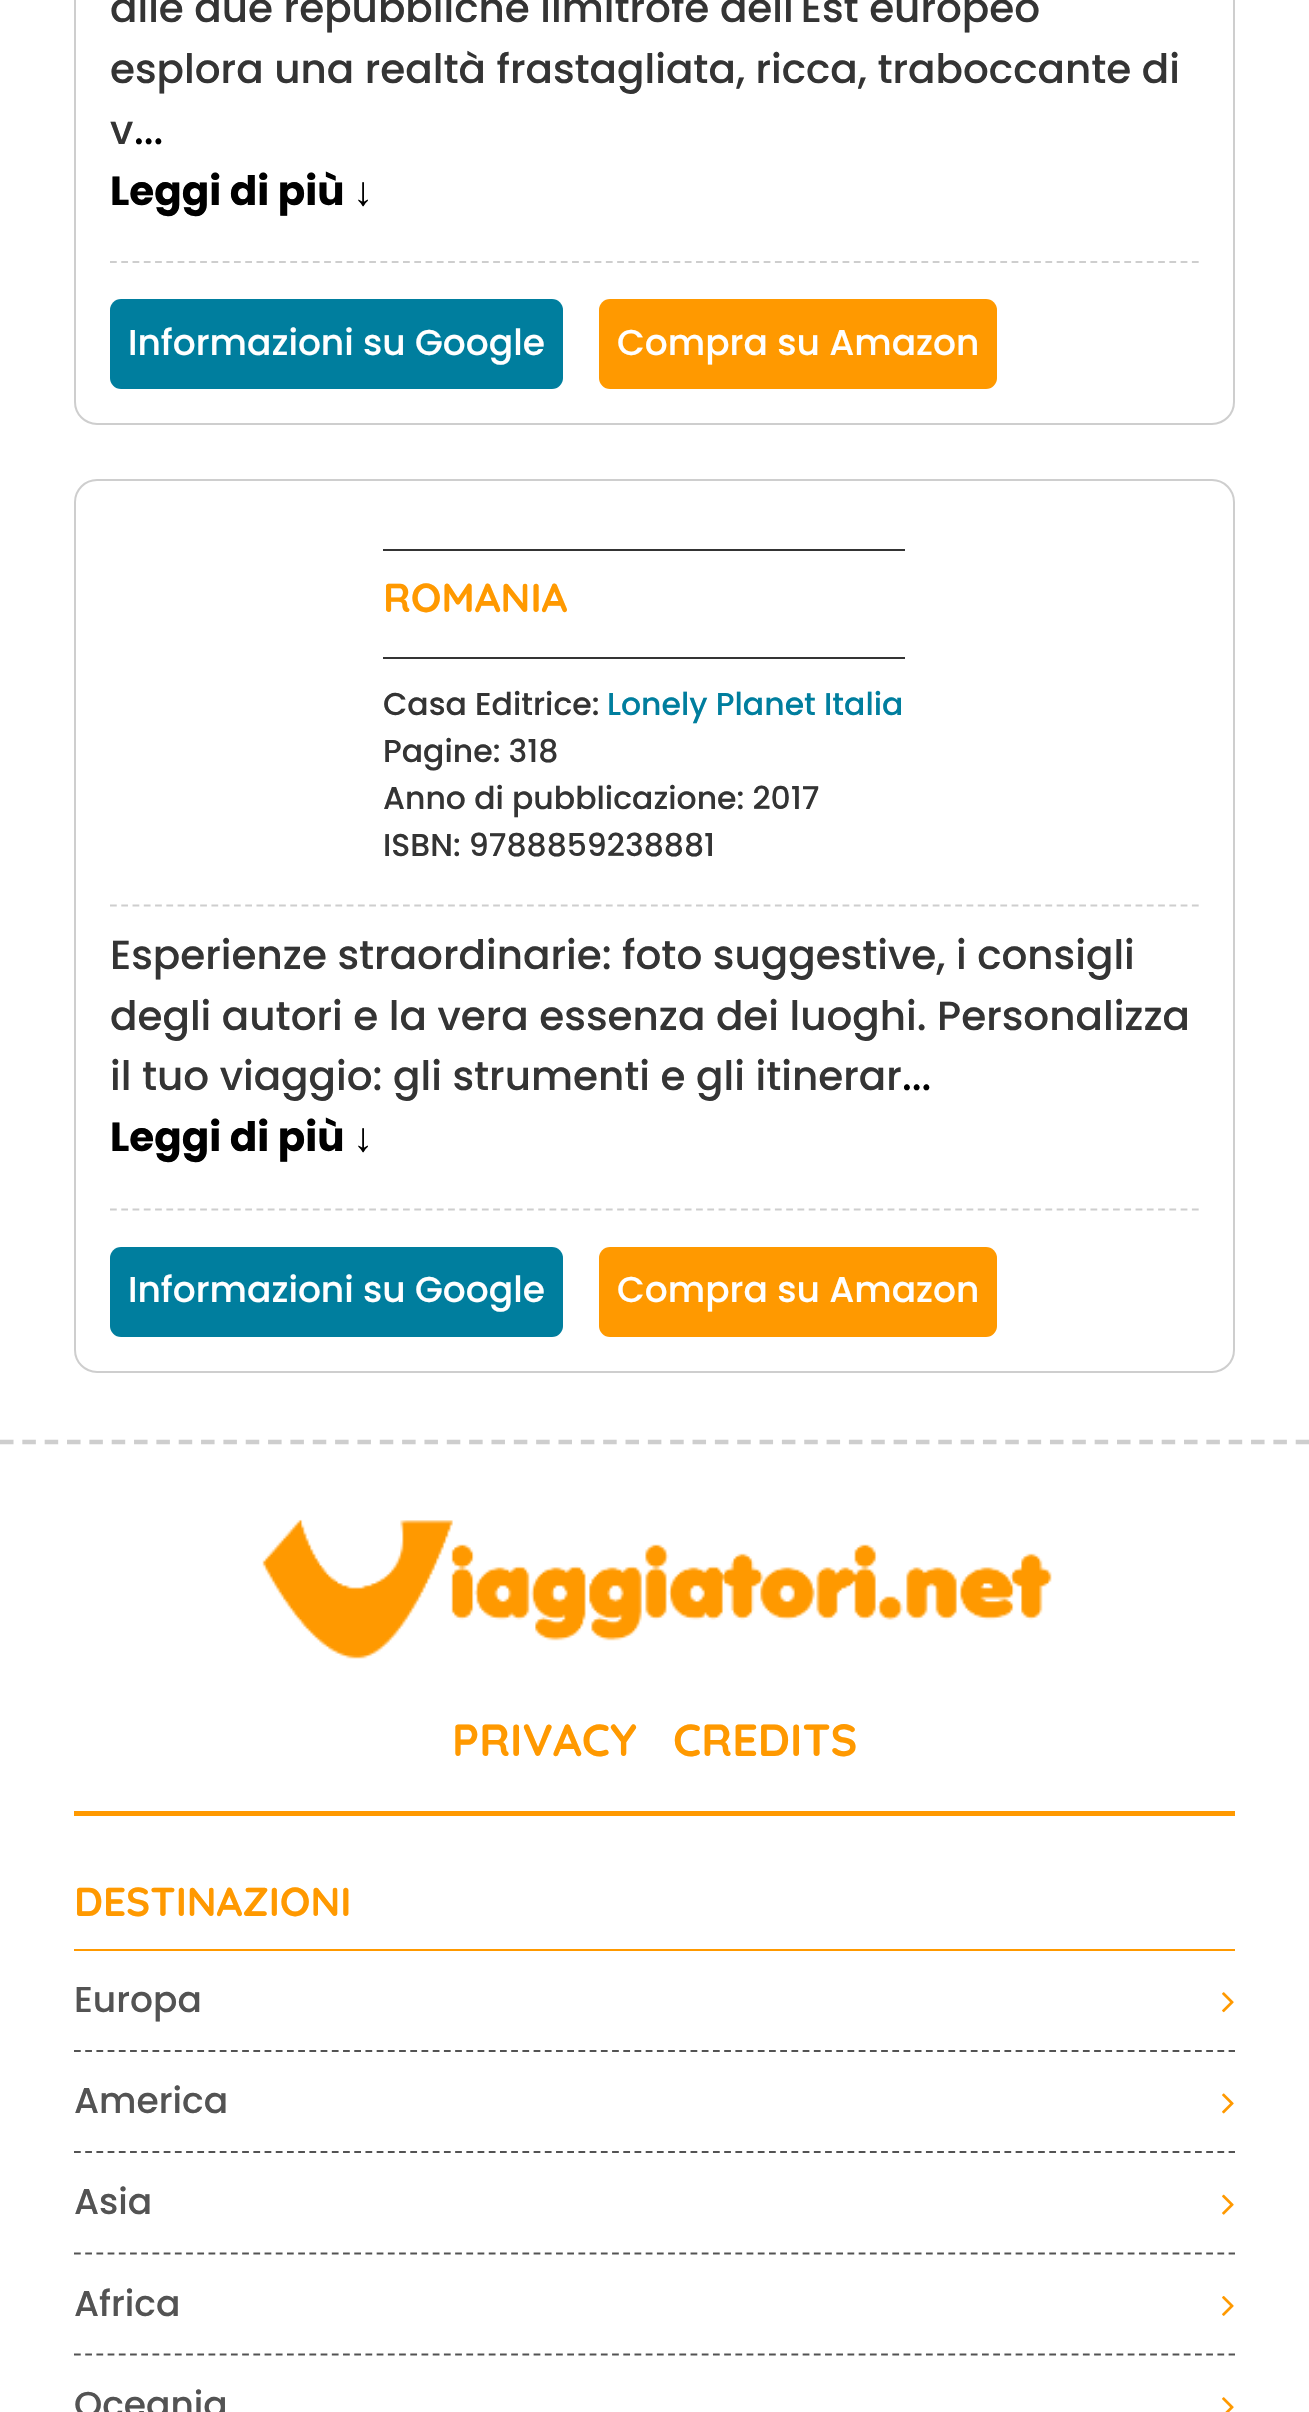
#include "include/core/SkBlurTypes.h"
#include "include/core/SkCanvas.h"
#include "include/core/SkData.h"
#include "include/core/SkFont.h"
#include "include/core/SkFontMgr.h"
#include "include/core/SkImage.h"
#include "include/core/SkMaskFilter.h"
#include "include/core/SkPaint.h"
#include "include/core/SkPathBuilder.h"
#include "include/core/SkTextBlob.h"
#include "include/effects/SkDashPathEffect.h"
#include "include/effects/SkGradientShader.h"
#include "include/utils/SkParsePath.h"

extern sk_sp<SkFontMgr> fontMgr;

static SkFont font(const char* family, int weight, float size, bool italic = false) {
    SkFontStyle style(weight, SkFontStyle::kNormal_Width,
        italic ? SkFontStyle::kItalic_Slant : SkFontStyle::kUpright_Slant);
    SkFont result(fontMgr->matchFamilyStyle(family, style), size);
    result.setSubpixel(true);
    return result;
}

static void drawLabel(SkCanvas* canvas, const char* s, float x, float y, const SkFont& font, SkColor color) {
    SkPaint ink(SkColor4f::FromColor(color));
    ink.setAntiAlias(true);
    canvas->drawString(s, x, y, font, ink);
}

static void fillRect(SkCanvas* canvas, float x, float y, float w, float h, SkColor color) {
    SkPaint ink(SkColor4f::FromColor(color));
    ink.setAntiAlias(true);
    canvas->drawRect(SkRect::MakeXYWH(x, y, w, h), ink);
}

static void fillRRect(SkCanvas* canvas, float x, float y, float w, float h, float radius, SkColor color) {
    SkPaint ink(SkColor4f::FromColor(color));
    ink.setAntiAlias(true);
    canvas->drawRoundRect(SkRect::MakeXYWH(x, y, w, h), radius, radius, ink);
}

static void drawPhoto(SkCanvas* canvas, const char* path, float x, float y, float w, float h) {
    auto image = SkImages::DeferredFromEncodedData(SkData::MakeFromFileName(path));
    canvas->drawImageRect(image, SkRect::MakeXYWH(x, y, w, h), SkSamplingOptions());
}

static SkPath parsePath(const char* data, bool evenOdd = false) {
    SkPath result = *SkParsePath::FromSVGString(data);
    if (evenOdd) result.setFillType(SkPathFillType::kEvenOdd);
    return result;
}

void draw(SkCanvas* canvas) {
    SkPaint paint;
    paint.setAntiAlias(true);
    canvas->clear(0xFFFFFFFF);
    paint.setStroke(true);
    paint.setStrokeWidth(2);
    paint.setColor(0xFFCECECE);
    canvas->drawRoundRect(SkRect::MakeXYWH(75, -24, 1159, 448), 22, 22, paint);
    paint.setStrokeWidth(2.2f);
    paint.setPathEffect(SkDashPathEffect::Make({{6.75f, 4.52f}}, 0));
    canvas->drawPath(parsePath("M110 262H1199"), paint);
    paint.setPathEffect(nullptr);
    SkFont font1 = font("Poppins", 500, 40.5f);
    drawLabel(canvas, "alle due repubbliche limitrofe dell'Est europeo", 110, 22, font1, 0xFF343434);
    drawLabel(canvas, "esplora una realtà frastagliata, ricca, traboccante di", 110, 83, font1, 0xFF343434);
    drawLabel(canvas, "v", 110, 144, font1, 0xFF343434);
    drawLabel(canvas, "...", 134, 144, font1, 0xFF000000);
    SkFont font2 = font("Poppins", 700, 40.5f);
    drawLabel(canvas, "Leggi di più", 110, 205, font2, 0xFF000000);
    SkFont font3 = font("Liberation Sans", 700, 40.5f);
    drawLabel(canvas, "↓", 353, 205, font3, 0xFF000000);
    fillRRect(canvas, 110, 299, 453, 90, 11, 0xFF007E9E);
    SkFont font4 = font("Poppins", 500, 36);
    drawLabel(canvas, "Informazioni su Google", 128, 355, font4, 0xFFFFFFFF);
    fillRRect(canvas, 599, 299, 398, 90, 11, 0xFFFF9900);
    drawLabel(canvas, "Compra su Amazon", 617, 355, font4, 0xFFFFFFFF);
    paint.setStrokeWidth(2);
    canvas->drawRoundRect(SkRect::MakeXYWH(75, 480, 1159, 892), 22, 22, paint);
    paint.setStrokeWidth(2.2f);
    paint.setPathEffect(SkDashPathEffect::Make({{6.75f, 4.52f}}, 0));
    canvas->drawPath(parsePath("M110 905.5H1199"), paint);
    paint.setPathEffect(nullptr);
    fillRect(canvas, 383, 549, 522, 2, 0xFF343434);
    fillRect(canvas, 383, 657, 522, 2, 0xFF343434);
    SkFont font5 = font("Quicksand", 700, 40.5f);
    drawLabel(canvas, "ROMANIA", 383, 612, font5, 0xFFFF9900);
    SkFont font6 = font("Poppins", 500, 31.5f);
    drawLabel(canvas, "Casa Editrice:", 383, 715, font6, 0xFF343434);
    drawLabel(canvas, "Lonely Planet Italia", 607, 715, font6, 0xFF007E9E);
    drawLabel(canvas, "Pagine: 318", 383, 762, font6, 0xFF343434);
    drawLabel(canvas, "Anno di pubblicazione: 2017", 383, 809, font6, 0xFF343434);
    drawLabel(canvas, "ISBN: 9788859238881", 383, 856, font6, 0xFF343434);
    paint.setPathEffect(SkDashPathEffect::Make({{6.75f, 4.52f}}, 0));
    canvas->drawPath(parsePath("M110 1209.5H1199"), paint);
    paint.setPathEffect(nullptr);
    drawLabel(canvas, "Esperienze straordinarie: foto suggestive, i consigli", 110, 969, font1, 0xFF343434);
    drawLabel(canvas, "degli autori e la vera essenza dei luoghi. Personalizza", 110, 1030, font1, 0xFF343434);
    drawLabel(canvas, "il tuo viaggio: gli strumenti e gli itinerar", 110, 1090, font1, 0xFF343434);
    drawLabel(canvas, "...", 902, 1090, font1, 0xFF000000);
    drawLabel(canvas, "Leggi di più", 110, 1151, font2, 0xFF000000);
    drawLabel(canvas, "↓", 353, 1151, font3, 0xFF000000);
    fillRRect(canvas, 110, 1247, 453, 90, 11, 0xFF007E9E);
    drawLabel(canvas, "Informazioni su Google", 128, 1302, font4, 0xFFFFFFFF);
    fillRRect(canvas, 599, 1247, 398, 90, 11, 0xFFFF9900);
    drawLabel(canvas, "Compra su Amazon", 617, 1302, font4, 0xFFFFFFFF);
    paint.setStrokeWidth(4.5f);
    paint.setPathEffect(SkDashPathEffect::Make({{13.5f, 8.84f}}, 0));
    canvas->drawPath(parsePath("M0 1442H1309.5"), paint);
    paint.setPathEffect(nullptr);
    fillRect(canvas, 74, 1811, 1161, 5, 0xFFFF9900);
    drawPhoto(canvas, "assets/img1.png", 262, 1519, 790, 140);
    SkFont font7 = font("Quicksand", 700, 45);
    drawLabel(canvas, "PRIVACY", 452, 1756, font7, 0xFFFF9900);
    drawLabel(canvas, "CREDITS", 673, 1756, font7, 0xFFFF9900);
    fillRect(canvas, 74, 1949, 1161, 2, 0xFFFF9900);
    drawLabel(canvas, "DESTINAZIONI", 74, 1916, font5, 0xFFFF9900);
    paint.setStrokeWidth(2.2f);
    paint.setColor(0xFF535353);
    paint.setPathEffect(SkDashPathEffect::Make({{6.75f, 4.46f}}, 0));
    canvas->drawPath(parsePath("M74 2051H1235"), paint);
    paint.setPathEffect(nullptr);
    drawLabel(canvas, "Europa", 74, 2012, font4, 0xFF535353);
    drawPhoto(canvas, "assets/img2.png", 1222, 1992, 12, 21);
    paint.setPathEffect(SkDashPathEffect::Make({{6.75f, 4.46f}}, 0));
    canvas->drawPath(parsePath("M74 2152H1235"), paint);
    paint.setPathEffect(nullptr);
    drawLabel(canvas, "America", 74, 2113, font4, 0xFF535353);
    drawPhoto(canvas, "assets/img3.png", 1222, 2093, 12, 21);
    paint.setPathEffect(SkDashPathEffect::Make({{6.75f, 4.46f}}, 0));
    canvas->drawPath(parsePath("M74 2253.5H1235"), paint);
    paint.setPathEffect(nullptr);
    drawLabel(canvas, "Asia", 74, 2214, font4, 0xFF535353);
    drawPhoto(canvas, "assets/img4.png", 1222, 2194, 12, 21);
    paint.setPathEffect(SkDashPathEffect::Make({{6.75f, 4.46f}}, 0));
    canvas->drawPath(parsePath("M74 2354.5H1235"), paint);
    paint.setPathEffect(nullptr);
    drawLabel(canvas, "Africa", 74, 2316, font4, 0xFF535353);
    drawPhoto(canvas, "assets/img5.png", 1222, 2296, 12, 20);
    drawLabel(canvas, "Oceania", 74, 2417, font4, 0xFF535353);
    drawPhoto(canvas, "assets/img6.png", 1222, 2397, 12, 15);
}
